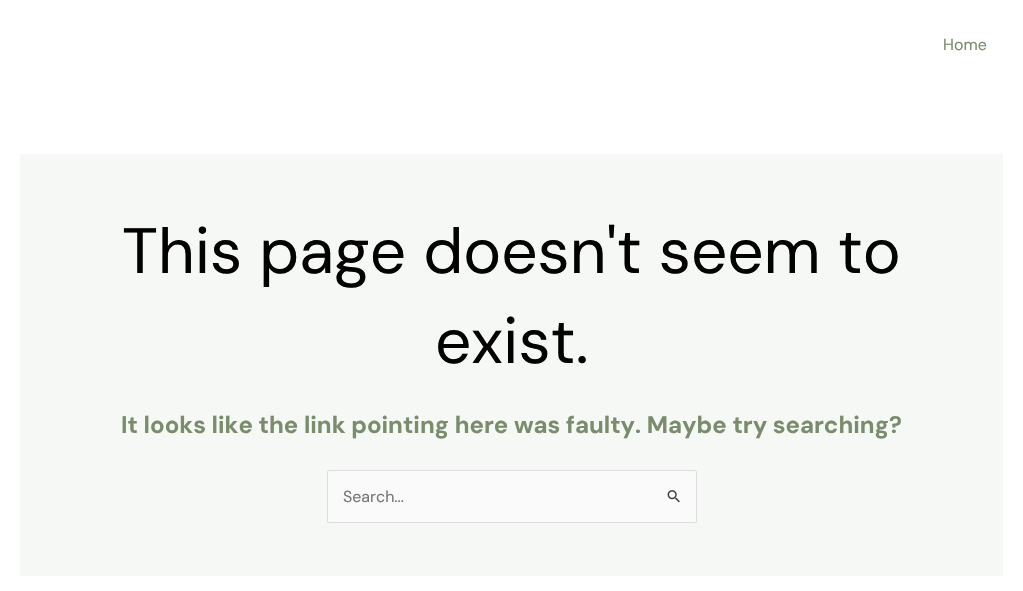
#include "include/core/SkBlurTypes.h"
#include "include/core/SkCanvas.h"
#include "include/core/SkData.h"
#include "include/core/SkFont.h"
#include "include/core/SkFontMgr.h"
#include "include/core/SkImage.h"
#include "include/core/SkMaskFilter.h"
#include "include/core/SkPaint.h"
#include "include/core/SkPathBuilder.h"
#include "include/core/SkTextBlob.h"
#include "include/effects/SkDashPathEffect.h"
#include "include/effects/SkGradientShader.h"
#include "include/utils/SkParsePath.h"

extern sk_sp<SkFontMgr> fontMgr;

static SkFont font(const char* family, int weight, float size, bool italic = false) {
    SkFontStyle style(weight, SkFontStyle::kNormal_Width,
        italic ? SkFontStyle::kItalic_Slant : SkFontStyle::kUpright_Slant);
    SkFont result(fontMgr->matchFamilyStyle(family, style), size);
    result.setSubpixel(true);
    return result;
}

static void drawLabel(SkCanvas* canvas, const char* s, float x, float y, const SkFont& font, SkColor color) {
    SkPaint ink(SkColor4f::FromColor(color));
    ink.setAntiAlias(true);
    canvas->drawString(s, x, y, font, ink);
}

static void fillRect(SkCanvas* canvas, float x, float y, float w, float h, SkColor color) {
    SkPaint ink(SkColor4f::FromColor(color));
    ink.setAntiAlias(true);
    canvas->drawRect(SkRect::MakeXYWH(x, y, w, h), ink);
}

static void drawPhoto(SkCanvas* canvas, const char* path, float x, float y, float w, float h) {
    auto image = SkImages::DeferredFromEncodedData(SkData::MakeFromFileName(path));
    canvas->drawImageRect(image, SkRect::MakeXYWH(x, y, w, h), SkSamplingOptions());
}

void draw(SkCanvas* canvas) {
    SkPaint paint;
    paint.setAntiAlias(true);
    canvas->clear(0xFFFFFFFF);
    SkFont font1 = font("DM Sans", 400, 16);
    drawLabel(canvas, "Home", 943, 50, font1, 0xFF7B8C6D);
    fillRect(canvas, 20, 154, 983, 422, 0xFFF6F8F5);
    SkFont font2 = font("DM Sans", 400, 64);
    drawLabel(canvas, "This page doesn't seem to", 122, 273, font2, 0xFF010100);
    drawLabel(canvas, "exist.", 435, 363, font2, 0xFF010100);
    SkFont font3 = font("DM Sans", 700, 24);
    drawLabel(canvas, "It looks like the link pointing here was faulty. Maybe try searching?", 121, 433, font3, 0xFF7B8C6D);
    paint.setColor(0xFFFAFAFA);
    canvas->drawRoundRect(SkRect::MakeXYWH(327.5f, 470.5f, 369, 52), 1.5f, 1.5f, paint);
    paint.setStroke(true);
    paint.setStrokeWidth(1);
    paint.setColor(0xFFDDDDDD);
    canvas->drawRoundRect(SkRect::MakeXYWH(327.5f, 470.5f, 369, 52), 1.5f, 1.5f, paint);
    drawLabel(canvas, "Search...", 343, 502, font1, 0xFF757575);
    drawPhoto(canvas, "assets/img1.png", 667, 490, 13, 13);
}
